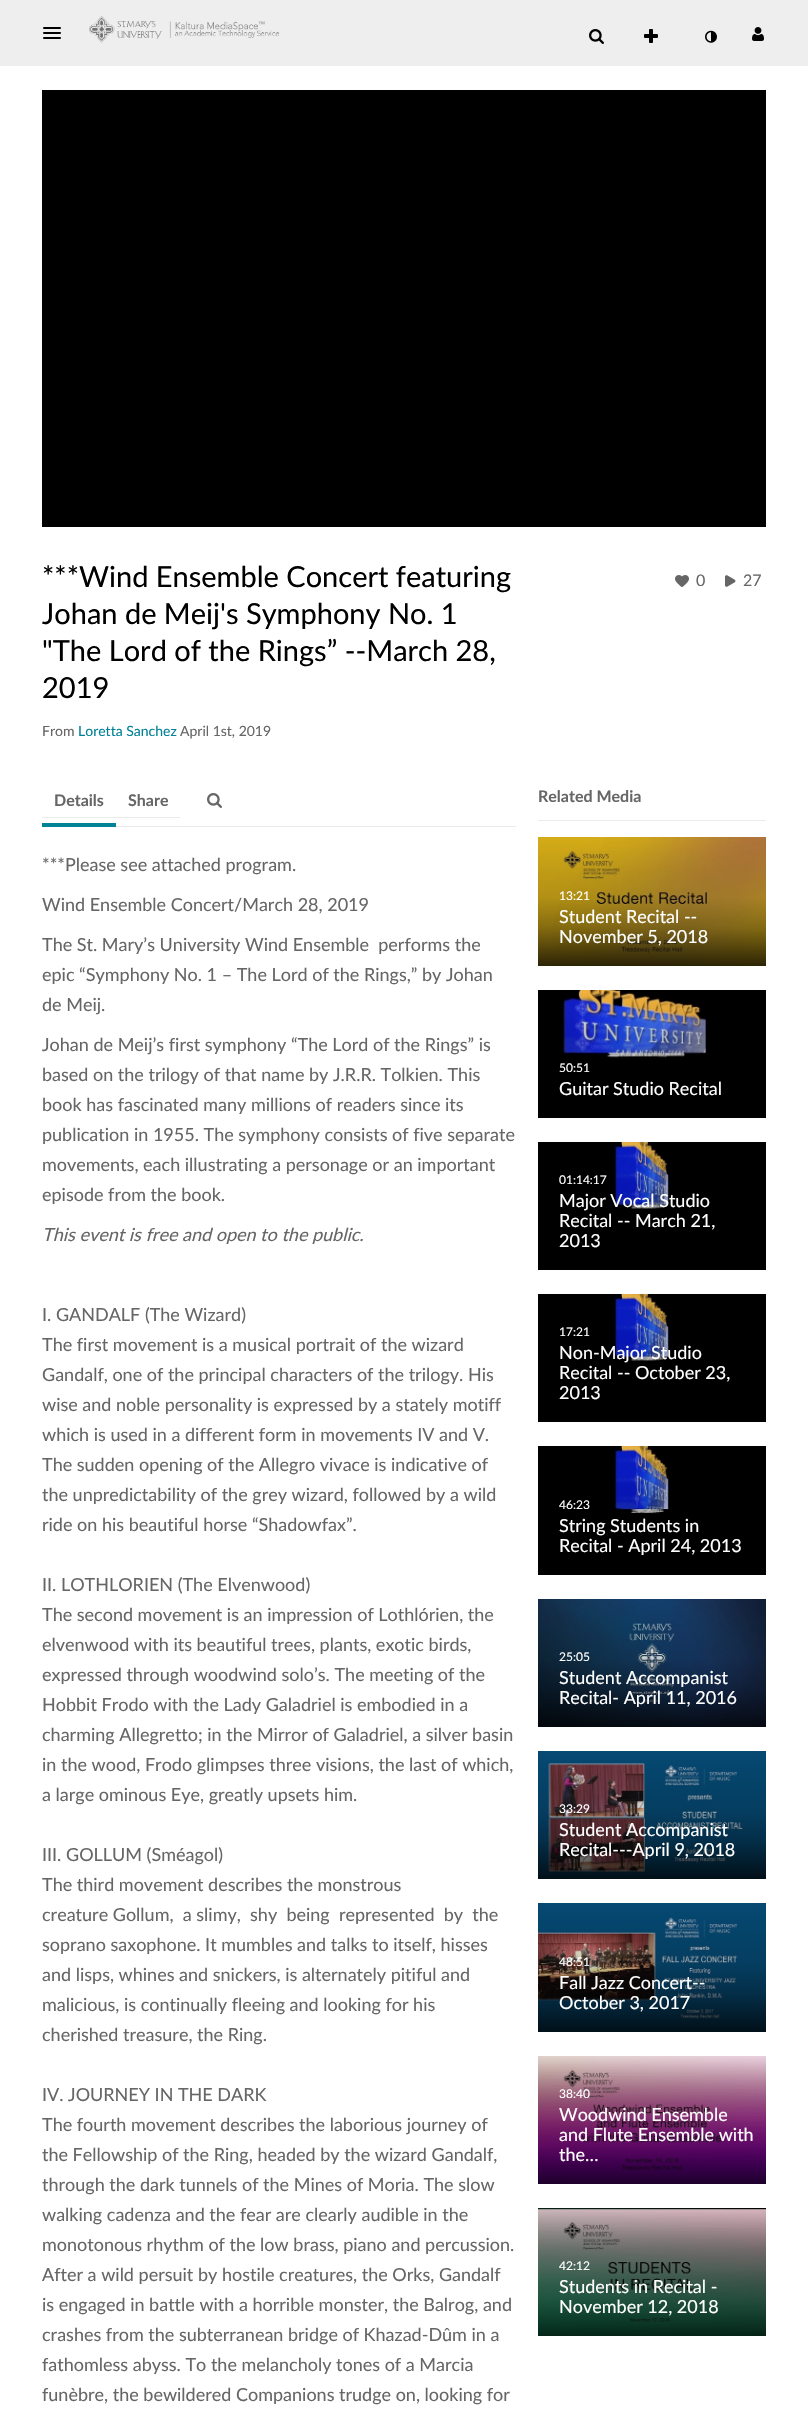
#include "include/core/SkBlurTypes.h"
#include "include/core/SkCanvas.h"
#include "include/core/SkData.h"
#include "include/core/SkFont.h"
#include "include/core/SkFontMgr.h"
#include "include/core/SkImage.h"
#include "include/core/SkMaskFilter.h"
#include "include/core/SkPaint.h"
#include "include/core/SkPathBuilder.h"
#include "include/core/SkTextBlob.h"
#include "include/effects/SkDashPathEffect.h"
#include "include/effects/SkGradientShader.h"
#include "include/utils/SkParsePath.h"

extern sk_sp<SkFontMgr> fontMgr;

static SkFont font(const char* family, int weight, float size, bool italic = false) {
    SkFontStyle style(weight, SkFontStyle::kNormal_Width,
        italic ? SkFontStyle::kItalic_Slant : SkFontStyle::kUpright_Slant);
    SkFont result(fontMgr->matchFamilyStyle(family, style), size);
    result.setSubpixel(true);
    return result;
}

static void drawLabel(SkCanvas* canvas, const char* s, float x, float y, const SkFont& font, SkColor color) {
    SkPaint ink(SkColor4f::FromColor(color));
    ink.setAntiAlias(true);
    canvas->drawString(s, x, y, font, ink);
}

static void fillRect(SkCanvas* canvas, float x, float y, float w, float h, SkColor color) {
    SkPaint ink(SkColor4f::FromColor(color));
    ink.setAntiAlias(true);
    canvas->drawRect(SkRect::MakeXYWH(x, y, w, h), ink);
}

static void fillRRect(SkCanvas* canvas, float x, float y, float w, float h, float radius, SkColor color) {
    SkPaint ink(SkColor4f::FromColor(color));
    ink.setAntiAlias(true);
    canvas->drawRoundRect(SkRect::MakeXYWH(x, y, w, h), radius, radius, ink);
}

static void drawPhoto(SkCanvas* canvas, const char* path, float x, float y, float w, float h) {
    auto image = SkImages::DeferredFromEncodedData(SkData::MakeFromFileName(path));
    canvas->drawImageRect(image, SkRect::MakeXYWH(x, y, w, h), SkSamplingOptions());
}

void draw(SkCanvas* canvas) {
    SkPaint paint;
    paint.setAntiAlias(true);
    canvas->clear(0xFFFFFFFF);
    fillRect(canvas, 0, 0, 808, 66, 0xFFEEEEEE);
    fillRRect(canvas, 43, 27, 18, 2, 1, 0xFF000000);
    fillRRect(canvas, 43, 32, 18, 2, 1, 0xFF000000);
    fillRRect(canvas, 43, 37, 18, 2, 1, 0xFF000000);
    drawPhoto(canvas, "assets/img1.png", 89, 16, 191, 27);
    drawPhoto(canvas, "assets/img2.png", 589, 29, 15, 15);
    drawPhoto(canvas, "assets/img3.png", 644, 29, 14, 14);
    drawPhoto(canvas, "assets/img4.png", 705, 30, 12, 13);
    drawPhoto(canvas, "assets/img5.png", 752, 27, 12, 14);
    fillRect(canvas, 42, 90, 724, 437, 0xFF000000);
    SkFont font1 = font("Lato", 400, 29);
    drawLabel(canvas, "***Wind Ensemble Concert featuring", 42, 587, font1, 0xFF000000);
    drawLabel(canvas, "Johan de Meij's Symphony No. 1", 42, 624, font1, 0xFF000000);
    drawLabel(canvas, "\"The Lord of the Rings” --March 28,", 42, 661, font1, 0xFF000000);
    drawLabel(canvas, "2019", 42, 698, font1, 0xFF000000);
    SkFont font2 = font("Lato", 400, 14);
    drawLabel(canvas, "From", 42, 736, font2, 0xFF666666);
    drawLabel(canvas, "Loretta Sanchez", 78, 736, font2, 0xFF008297);
    drawLabel(canvas, "April 1st, 2019", 180, 736, font2, 0xFF666666);
    drawPhoto(canvas, "assets/img6.png", 675, 575, 14, 12);
    SkFont font3 = font("Lato", 400, 16);
    drawLabel(canvas, "0", 696, 586, font3, 0xFF666666);
    drawPhoto(canvas, "assets/img7.png", 725, 575, 11, 12);
    drawLabel(canvas, "27", 743, 586, font3, 0xFF666666);
    fillRect(canvas, 116, 826, 400, 1, 0xFFEBEBEB);
    fillRect(canvas, 42, 817, 138, 1, 0xFFEBEBEB);
    fillRect(canvas, 42, 823, 74, 4, 0xFF008297);
    SkFont font4 = font("Lato", 700, 16);
    drawLabel(canvas, "Details", 54, 806, font4, 0xFF666666);
    drawLabel(canvas, "Share", 128, 806, font4, 0xFF666666);
    drawPhoto(canvas, "assets/img8.png", 207, 793, 15, 15);
    SkFont font5 = font("Lato", 400, 18);
    drawLabel(canvas, "***Please see attached program.", 42, 871, font5, 0xFF666666);
    drawLabel(canvas, "Wind Ensemble Concert/March 28, 2019", 42, 911, font5, 0xFF666666);
    drawLabel(canvas, "The St. Mary’s University Wind Ensemble  performs the", 42, 951, font5, 0xFF666666);
    drawLabel(canvas, "epic “Symphony No. 1 – The Lord of the Rings,” by Johan", 42, 981, font5, 0xFF666666);
    drawLabel(canvas, "de Meij.", 42, 1011, font5, 0xFF666666);
    drawLabel(canvas, "Johan de Meij’s first symphony “The Lord of the Rings” is", 42, 1051, font5, 0xFF666666);
    drawLabel(canvas, "based on the trilogy of that name by J.R.R. Tolkien. This", 42, 1081, font5, 0xFF666666);
    drawLabel(canvas, "book has fascinated many millions of readers since its", 42, 1111, font5, 0xFF666666);
    drawLabel(canvas, "publication in 1955. The symphony consists of five separate", 42, 1141, font5, 0xFF666666);
    drawLabel(canvas, "movements, each illustrating a personage or an important", 42, 1171, font5, 0xFF666666);
    drawLabel(canvas, "episode from the book.", 42, 1201, font5, 0xFF666666);
    SkFont font6 = font("Lato", 400, 18, true);
    drawLabel(canvas, "This event is free and open to the public.", 42, 1241, font6, 0xFF666666);
    drawLabel(canvas, "I. GANDALF (The Wizard)", 42, 1321, font5, 0xFF666666);
    drawLabel(canvas, "The first movement is a musical portrait of the wizard", 42, 1351, font5, 0xFF666666);
    drawLabel(canvas, "Gandalf, one of the principal characters of the trilogy. His", 42, 1381, font5, 0xFF666666);
    drawLabel(canvas, "wise and noble personality is expressed by a stately motiff", 42, 1411, font5, 0xFF666666);
    drawLabel(canvas, "which is used in a different form in movements IV and V.", 42, 1441, font5, 0xFF666666);
    drawLabel(canvas, "The sudden opening of the Allegro vivace is indicative of", 42, 1471, font5, 0xFF666666);
    drawLabel(canvas, "the unpredictability of the grey wizard, followed by a wild", 42, 1501, font5, 0xFF666666);
    drawLabel(canvas, "ride on his beautiful horse “Shadowfax”.", 42, 1531, font5, 0xFF666666);
    drawLabel(canvas, "II. LOTHLORIEN (The Elvenwood)", 42, 1591, font5, 0xFF666666);
    drawLabel(canvas, "The second movement is an impression of Lothlórien, the", 42, 1621, font5, 0xFF666666);
    drawLabel(canvas, "elvenwood with its beautiful trees, plants, exotic birds,", 42, 1651, font5, 0xFF666666);
    drawLabel(canvas, "expressed through woodwind solo’s. The meeting of the", 42, 1681, font5, 0xFF666666);
    drawLabel(canvas, "Hobbit Frodo with the Lady Galadriel is embodied in a", 42, 1711, font5, 0xFF666666);
    drawLabel(canvas, "charming Allegretto; in the Mirror of Galadriel, a silver basin", 42, 1741, font5, 0xFF666666);
    drawLabel(canvas, "in the wood, Frodo glimpses three visions, the last of which,", 42, 1771, font5, 0xFF666666);
    drawLabel(canvas, "a large ominous Eye, greatly upsets him.", 42, 1801, font5, 0xFF666666);
    drawLabel(canvas, "III. GOLLUM (Sméagol)", 42, 1861, font5, 0xFF666666);
    drawLabel(canvas, "The third movement describes the monstrous", 42, 1891, font5, 0xFF666666);
    drawLabel(canvas, "creature Gollum,  a slimy,  shy  being  represented  by  the", 42, 1921, font5, 0xFF666666);
    drawLabel(canvas, "soprano saxophone. It mumbles and talks to itself, hisses", 42, 1951, font5, 0xFF666666);
    drawLabel(canvas, "and lisps, whines and snickers, is alternately pitiful and", 42, 1981, font5, 0xFF666666);
    drawLabel(canvas, "malicious, is continually fleeing and looking for his", 42, 2011, font5, 0xFF666666);
    drawLabel(canvas, "cherished treasure, the Ring.", 42, 2041, font5, 0xFF666666);
    drawLabel(canvas, "IV. JOURNEY IN THE DARK", 42, 2101, font5, 0xFF666666);
    drawLabel(canvas, "The fourth movement describes the laborious journey of", 42, 2131, font5, 0xFF666666);
    drawLabel(canvas, "the Fellowship of the Ring, headed by the wizard Gandalf,", 42, 2161, font5, 0xFF666666);
    drawLabel(canvas, "through the dark tunnels of the Mines of Moria. The slow", 42, 2191, font5, 0xFF666666);
    drawLabel(canvas, "walking cadenza and the fear are clearly audible in the", 42, 2221, font5, 0xFF666666);
    drawLabel(canvas, "monotonous rhythm of the low brass, piano and percussion.", 42, 2251, font5, 0xFF666666);
    drawLabel(canvas, "After a wild persuit by hostile creatures, the Orks, Gandalf", 42, 2281, font5, 0xFF666666);
    drawLabel(canvas, "is engaged in battle with a horrible monster, the Balrog, and", 42, 2311, font5, 0xFF666666);
    drawLabel(canvas, "crashes from the subterranean bridge of Khazad-Dûm in a", 42, 2341, font5, 0xFF666666);
    drawLabel(canvas, "fathomless abyss. To the melancholy tones of a Marcia", 42, 2371, font5, 0xFF666666);
    drawLabel(canvas, "funèbre, the bewildered Companions trudge on, looking for", 42, 2401, font5, 0xFF666666);
    fillRect(canvas, 538, 820, 228, 1, 0xFFEBEBEB);
    drawLabel(canvas, "Related Media", 538, 802, font4, 0xFF666666);
    drawPhoto(canvas, "assets/img9.png", 538, 837, 228, 129);
    SkFont font7 = font("Lato", 400, 12);
    drawLabel(canvas, "13:21", 559, 900, font7, 0xFFFFFFFF);
    drawLabel(canvas, "Student Recital --", 559, 923, font5, 0xFFFFFFFF);
    drawLabel(canvas, "November 5, 2018", 559, 943, font5, 0xFFFFFFFF);
    drawPhoto(canvas, "assets/img10.png", 538, 990, 228, 128);
    drawLabel(canvas, "50:51", 559, 1072, font7, 0xFFFFFFFF);
    drawLabel(canvas, "Guitar Studio Recital", 559, 1095, font5, 0xFFFFFFFF);
    drawPhoto(canvas, "assets/img11.png", 538, 1142, 228, 128);
    drawLabel(canvas, "01:14:17", 559, 1184, font7, 0xFFFFFFFF);
    drawLabel(canvas, "Major Vocal Studio", 559, 1207, font5, 0xFFFFFFFF);
    drawLabel(canvas, "Recital -- March 21,", 559, 1227, font5, 0xFFFFFFFF);
    drawLabel(canvas, "2013", 559, 1247, font5, 0xFFFFFFFF);
    drawPhoto(canvas, "assets/img12.png", 538, 1294, 228, 128);
    drawLabel(canvas, "17:21", 559, 1336, font7, 0xFFFFFFFF);
    drawLabel(canvas, "Non-Major Studio", 559, 1359, font5, 0xFFFFFFFF);
    drawLabel(canvas, "Recital -- October 23,", 559, 1379, font5, 0xFFFFFFFF);
    drawLabel(canvas, "2013", 559, 1399, font5, 0xFFFFFFFF);
    drawPhoto(canvas, "assets/img13.png", 538, 1446, 228, 129);
    drawLabel(canvas, "46:23", 559, 1509, font7, 0xFFFFFFFF);
    drawLabel(canvas, "String Students in", 559, 1532, font5, 0xFFFFFFFF);
    drawLabel(canvas, "Recital - April 24, 2013", 559, 1552, font5, 0xFFFFFFFF);
    drawPhoto(canvas, "assets/img14.png", 538, 1599, 228, 128);
    drawLabel(canvas, "25:05", 559, 1661, font7, 0xFFFFFFFF);
    drawLabel(canvas, "Student Accompanist", 559, 1684, font5, 0xFFFFFFFF);
    drawLabel(canvas, "Recital- April 11, 2016", 559, 1704, font5, 0xFFFFFFFF);
    drawPhoto(canvas, "assets/img15.png", 538, 1751, 228, 128);
    drawLabel(canvas, "33:29", 559, 1813, font7, 0xFFFFFFFF);
    drawLabel(canvas, "Student Accompanist", 559, 1836, font5, 0xFFFFFFFF);
    drawLabel(canvas, "Recital---April 9, 2018", 559, 1856, font5, 0xFFFFFFFF);
    drawPhoto(canvas, "assets/img16.png", 538, 1903, 228, 129);
    drawLabel(canvas, "48:51", 559, 1966, font7, 0xFFFFFFFF);
    drawLabel(canvas, "Fall Jazz Concert--", 559, 1989, font5, 0xFFFFFFFF);
    drawLabel(canvas, "October 3, 2017", 559, 2009, font5, 0xFFFFFFFF);
    drawPhoto(canvas, "assets/img17.png", 538, 2056, 228, 128);
    drawLabel(canvas, "38:40", 559, 2098, font7, 0xFFFFFFFF);
    drawLabel(canvas, "Woodwind Ensemble", 559, 2121, font5, 0xFFFFFFFF);
    drawLabel(canvas, "and Flute Ensemble with", 559, 2141, font5, 0xFFFFFFFF);
    drawLabel(canvas, "the…", 559, 2161, font5, 0xFFFFFFFF);
    drawPhoto(canvas, "assets/img18.png", 538, 2208, 228, 128);
    drawLabel(canvas, "42:12", 559, 2270, font7, 0xFFFFFFFF);
    drawLabel(canvas, "Students in Recital -", 559, 2293, font5, 0xFFFFFFFF);
    drawLabel(canvas, "November 12, 2018", 559, 2313, font5, 0xFFFFFFFF);
}
